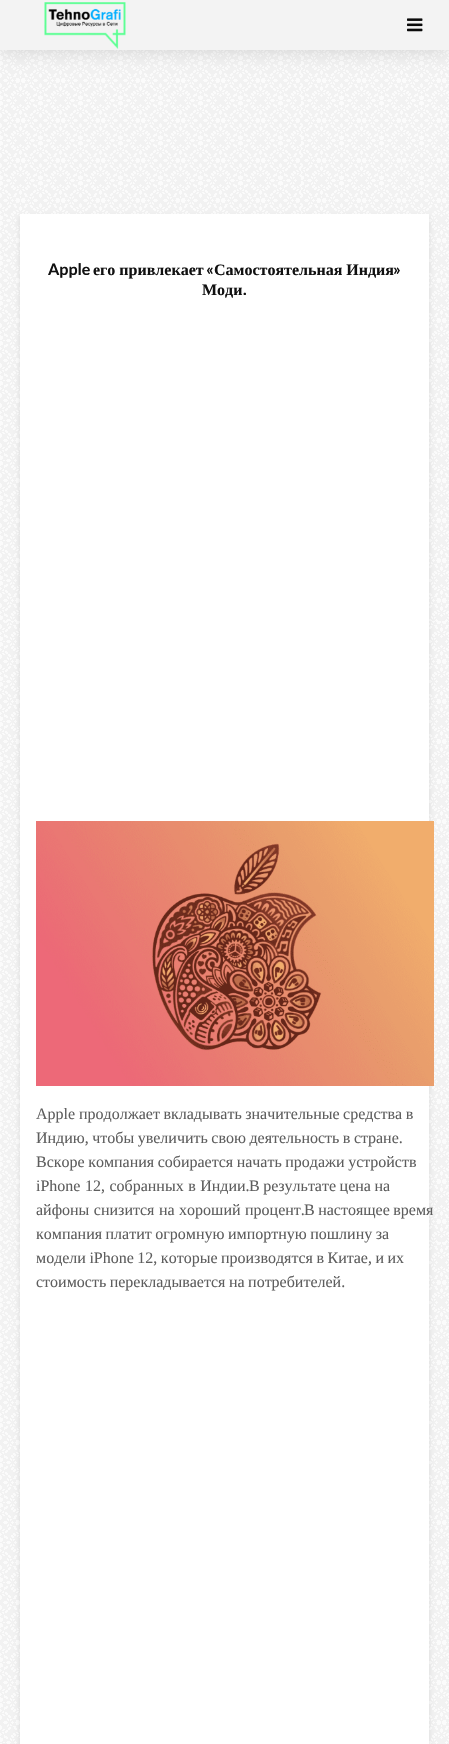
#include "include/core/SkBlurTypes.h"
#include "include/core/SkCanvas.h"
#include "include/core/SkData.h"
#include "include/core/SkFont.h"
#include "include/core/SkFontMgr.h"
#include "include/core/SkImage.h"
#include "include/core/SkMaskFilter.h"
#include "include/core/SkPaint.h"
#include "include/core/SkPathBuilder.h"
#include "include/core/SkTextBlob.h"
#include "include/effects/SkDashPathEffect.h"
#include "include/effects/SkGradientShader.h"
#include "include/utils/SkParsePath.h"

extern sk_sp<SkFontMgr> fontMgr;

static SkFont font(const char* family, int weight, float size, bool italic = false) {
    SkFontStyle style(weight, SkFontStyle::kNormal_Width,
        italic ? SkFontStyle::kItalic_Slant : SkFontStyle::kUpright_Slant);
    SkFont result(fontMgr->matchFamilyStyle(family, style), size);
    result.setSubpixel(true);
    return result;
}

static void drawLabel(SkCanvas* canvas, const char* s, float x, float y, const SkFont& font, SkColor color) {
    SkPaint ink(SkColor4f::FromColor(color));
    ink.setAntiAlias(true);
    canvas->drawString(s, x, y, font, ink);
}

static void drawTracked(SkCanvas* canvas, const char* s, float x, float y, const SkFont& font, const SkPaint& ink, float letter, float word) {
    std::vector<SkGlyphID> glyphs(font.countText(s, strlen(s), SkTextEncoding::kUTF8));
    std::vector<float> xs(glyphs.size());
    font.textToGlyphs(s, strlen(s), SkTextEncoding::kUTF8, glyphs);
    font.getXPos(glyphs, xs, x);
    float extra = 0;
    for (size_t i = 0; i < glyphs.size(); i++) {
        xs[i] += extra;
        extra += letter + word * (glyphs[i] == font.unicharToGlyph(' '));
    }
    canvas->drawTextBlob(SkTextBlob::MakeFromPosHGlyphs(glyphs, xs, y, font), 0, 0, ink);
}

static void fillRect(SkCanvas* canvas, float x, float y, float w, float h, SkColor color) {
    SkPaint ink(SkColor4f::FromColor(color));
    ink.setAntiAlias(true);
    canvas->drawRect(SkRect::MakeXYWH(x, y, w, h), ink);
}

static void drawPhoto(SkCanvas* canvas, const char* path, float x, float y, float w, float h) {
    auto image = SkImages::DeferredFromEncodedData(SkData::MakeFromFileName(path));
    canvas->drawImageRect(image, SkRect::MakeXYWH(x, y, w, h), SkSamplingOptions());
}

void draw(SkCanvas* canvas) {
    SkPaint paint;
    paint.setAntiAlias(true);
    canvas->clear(0xFFFFFFFF);
    drawPhoto(canvas, "assets/img1.png", 0, 50, 449, 1694);
    paint.setColor(0x26000000);
    paint.setMaskFilter(SkMaskFilter::MakeBlur(kNormal_SkBlurStyle, 10));
    canvas->drawRect(SkRect::MakeXYWH(0, 0, 449, 50), paint);
    paint.setMaskFilter(nullptr);
    fillRect(canvas, 0, 0, 449, 50, 0xFFF3F3F3);
    drawPhoto(canvas, "assets/img2.png", 44, 2, 82, 47);
    drawPhoto(canvas, "assets/img3.png", 407, 18, 16, 14);
    paint.setColor(0x1A000101);
    paint.setMaskFilter(SkMaskFilter::MakeBlur(kNormal_SkBlurStyle, 2.5f));
    canvas->drawRect(SkRect::MakeXYWH(20, 217, 409, 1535), paint);
    paint.setMaskFilter(nullptr);
    fillRect(canvas, 20, 214, 409, 1530, 0xFFFFFFFF);
    SkFont font1 = font("Lato", 700, 16);
    drawLabel(canvas, "Apple", 48, 275, font1, 0xFF111111);
    SkFont font2 = font("Liberation Serif", 700, 16);
    drawLabel(canvas, "его привлекает", 93, 275, font2, 0xFF111111);
    drawLabel(canvas, "«", 206, 275, font1, 0xFF111111);
    drawLabel(canvas, "Самостоятельная Индия", 214, 275, font2, 0xFF111111);
    drawLabel(canvas, "»", 393, 275, font1, 0xFF111111);
    drawLabel(canvas, "Моди", 202, 295, font2, 0xFF111111);
    drawLabel(canvas, ".", 243, 295, font1, 0xFF111111);
    drawPhoto(canvas, "assets/img4.png", 36, 821, 398, 265);
    SkFont font3 = font("Liberation Serif", 400, 16);
    drawLabel(canvas, "Apple", 36, 1119, font3, 0xFF5E5E5E);
    paint.setColor(0xFF5E5E5E);
    drawTracked(canvas, "продолжает вкладывать значительные средства в", 79, 1119, font3, paint, 0, -0.5f);
    drawTracked(canvas, "Индию, чтобы увеличить свою деятельность в стране.", 36, 1143, font3, paint, 0, -0.5f);
    drawTracked(canvas, "Вскоре компания собирается начать продажи устройств", 36, 1167, font3, paint, 0, -0.5f);
    drawTracked(canvas, "iPhone 12, собранных в Индии.", 36, 1191, font3, paint, 0, 0.5f);
    drawTracked(canvas, "В результате цена на", 249, 1191, font3, paint, 0, -0.5f);
    drawTracked(canvas, "айфоны снизится на хороший процент.", 36, 1215, font3, paint, 0, 0.5f);
    drawTracked(canvas, "В настоящее время", 304, 1215, font3, paint, 0, -0.5f);
    drawTracked(canvas, "компания платит огромную импортную пошлину за", 36, 1239, font3, paint, 0, -0.5f);
    drawTracked(canvas, "модели iPhone 12, которые производятся в Китае, и их", 36, 1263, font3, paint, 0, -0.5f);
    drawTracked(canvas, "стоимость перекладывается на потребителей.", 36, 1287, font3, paint, 0, -0.5f);
}
